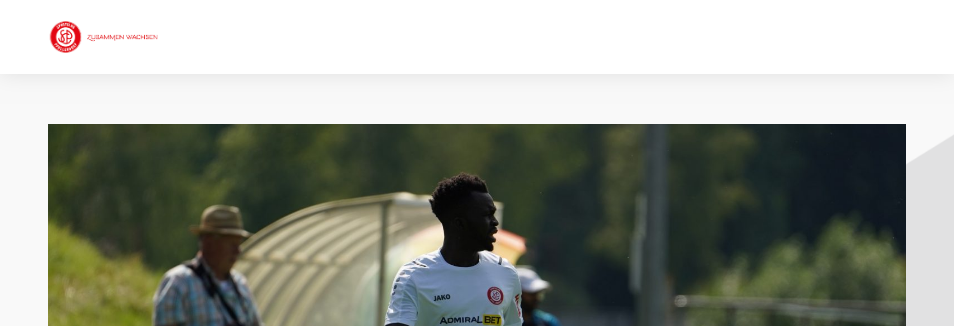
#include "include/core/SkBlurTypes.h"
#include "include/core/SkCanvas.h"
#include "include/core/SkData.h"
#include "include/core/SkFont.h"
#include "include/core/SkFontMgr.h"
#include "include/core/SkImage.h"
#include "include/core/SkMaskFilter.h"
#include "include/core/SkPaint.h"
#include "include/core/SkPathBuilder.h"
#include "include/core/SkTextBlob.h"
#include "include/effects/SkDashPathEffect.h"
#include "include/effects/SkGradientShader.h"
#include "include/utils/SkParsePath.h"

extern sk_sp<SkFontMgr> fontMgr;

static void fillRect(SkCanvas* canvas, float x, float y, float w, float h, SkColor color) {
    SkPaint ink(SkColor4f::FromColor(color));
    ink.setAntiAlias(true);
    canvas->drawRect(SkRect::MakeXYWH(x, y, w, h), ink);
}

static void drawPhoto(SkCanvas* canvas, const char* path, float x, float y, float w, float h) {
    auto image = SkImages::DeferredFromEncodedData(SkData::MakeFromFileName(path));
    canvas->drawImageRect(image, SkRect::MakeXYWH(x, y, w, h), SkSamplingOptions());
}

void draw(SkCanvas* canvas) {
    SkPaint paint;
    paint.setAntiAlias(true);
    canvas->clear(0xFFFFFFFF);
    drawPhoto(canvas, "assets/img1.png", 0, 74, 954, 252);
    paint.setColor(0x1A000000);
    paint.setMaskFilter(SkMaskFilter::MakeBlur(kNormal_SkBlurStyle, 10));
    canvas->drawRect(SkRect::MakeXYWH(0, 0, 954, 74), paint);
    paint.setMaskFilter(nullptr);
    fillRect(canvas, 0, 0, 954, 74, 0xFFFFFFFF);
    drawPhoto(canvas, "assets/img2.png", 49, 21, 109, 32);
    drawPhoto(canvas, "assets/img3.png", 48, 124, 858, 202);
}
